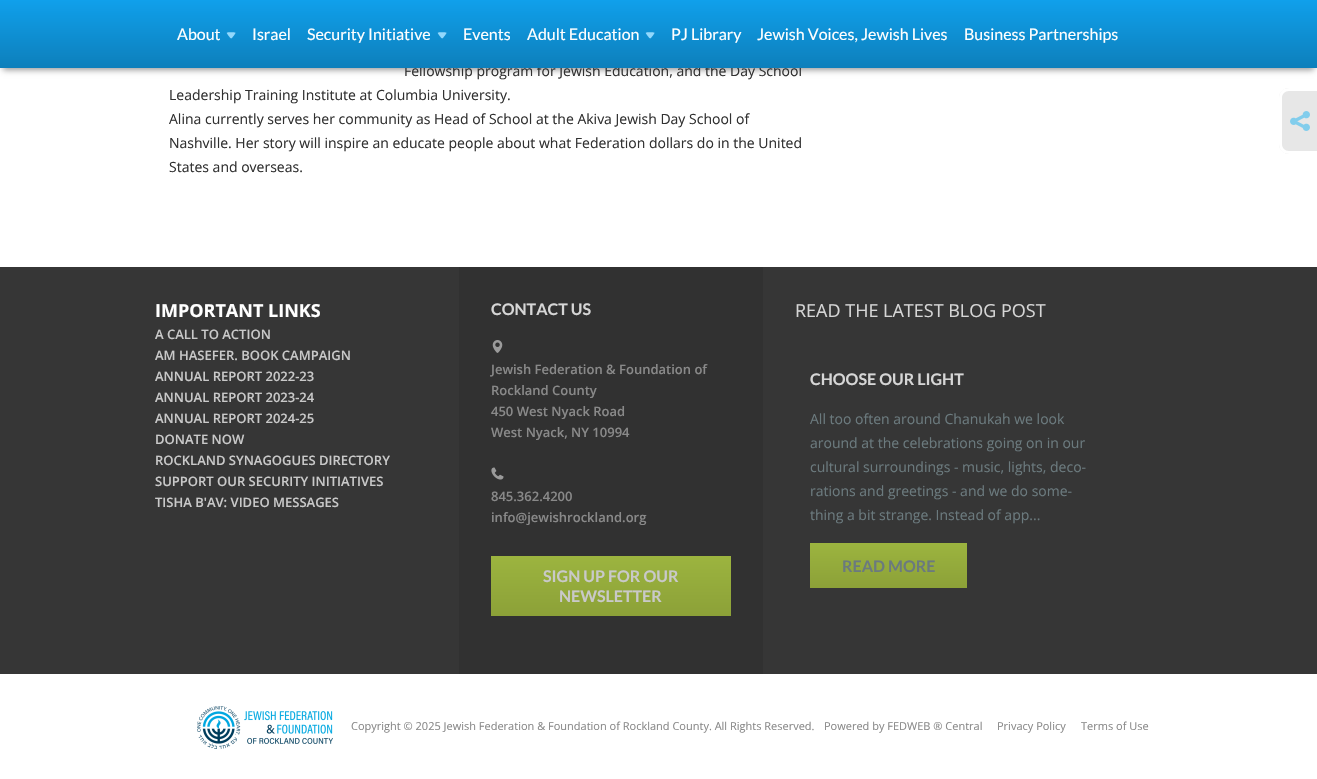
#include "include/core/SkBlurTypes.h"
#include "include/core/SkCanvas.h"
#include "include/core/SkData.h"
#include "include/core/SkFont.h"
#include "include/core/SkFontMgr.h"
#include "include/core/SkImage.h"
#include "include/core/SkMaskFilter.h"
#include "include/core/SkPaint.h"
#include "include/core/SkPathBuilder.h"
#include "include/core/SkTextBlob.h"
#include "include/effects/SkDashPathEffect.h"
#include "include/effects/SkGradientShader.h"
#include "include/utils/SkParsePath.h"

extern sk_sp<SkFontMgr> fontMgr;

static SkFont font(const char* family, int weight, float size, bool italic = false) {
    SkFontStyle style(weight, SkFontStyle::kNormal_Width,
        italic ? SkFontStyle::kItalic_Slant : SkFontStyle::kUpright_Slant);
    SkFont result(fontMgr->matchFamilyStyle(family, style), size);
    result.setSubpixel(true);
    return result;
}

static void drawLabel(SkCanvas* canvas, const char* s, float x, float y, const SkFont& font, SkColor color) {
    SkPaint ink(SkColor4f::FromColor(color));
    ink.setAntiAlias(true);
    canvas->drawString(s, x, y, font, ink);
}

static void fillRect(SkCanvas* canvas, float x, float y, float w, float h, SkColor color) {
    SkPaint ink(SkColor4f::FromColor(color));
    ink.setAntiAlias(true);
    canvas->drawRect(SkRect::MakeXYWH(x, y, w, h), ink);
}

static void drawPhoto(SkCanvas* canvas, const char* path, float x, float y, float w, float h) {
    auto image = SkImages::DeferredFromEncodedData(SkData::MakeFromFileName(path));
    canvas->drawImageRect(image, SkRect::MakeXYWH(x, y, w, h), SkSamplingOptions());
}

static SkPath parsePath(const char* data, bool evenOdd = false) {
    SkPath result = *SkParsePath::FromSVGString(data);
    if (evenOdd) result.setFillType(SkPathFillType::kEvenOdd);
    return result;
}

void draw(SkCanvas* canvas) {
    SkPaint paint;
    paint.setAntiAlias(true);
    canvas->clear(0xFFFFFFFF);
    paint.setColor(0x66000000);
    paint.setMaskFilter(SkMaskFilter::MakeBlur(kNormal_SkBlurStyle, 3));
    canvas->drawRect(SkRect::MakeXYWH(3, 8, 1311, 62), paint);
    paint.setMaskFilter(nullptr);
    SkFont font1 = font("Open Sans", 400, 14);
    drawLabel(canvas, "Fellowship program for Jewish Education, and the Day School", 404, 76, font1, 0xFF313131);
    {
        const SkColor colors[] = {0xFF10A0EB, 0xFF0D7FBB};
        const float stops[] = {0, 1};
        const SkPoint ends[] = {{659, 0}, {659, 68}};
        paint.setShader(SkGradientShader::MakeLinear(ends, colors, stops, 2, SkTileMode::kClamp));
        paint.setAlpha(255);
    }
    canvas->drawRect(SkRect::MakeXYWH(0, 0, 1317, 68), paint);
    SkFont font2 = font("Lato", 400, 16);
    drawLabel(canvas, "About", 177, 40, font2, 0xFFFFFFFF);
    drawPhoto(canvas, "assets/img1.png", 226, 32, 10, 7);
    drawLabel(canvas, "Israel", 252, 40, font2, 0xFFFFFFFF);
    drawLabel(canvas, "Security Initiative", 307, 40, font2, 0xFFFFFFFF);
    drawPhoto(canvas, "assets/img1.png", 437, 32, 10, 7);
    drawLabel(canvas, "Events", 463, 40, font2, 0xFFFFFFFF);
    drawLabel(canvas, "Adult Education", 527, 40, font2, 0xFFFFFFFF);
    drawPhoto(canvas, "assets/img1.png", 645, 32, 10, 7);
    drawLabel(canvas, "PJ Library", 671, 40, font2, 0xFFFFFFFF);
    drawLabel(canvas, "Jewish Voices, Jewish Lives", 757, 40, font2, 0xFFFFFFFF);
    drawLabel(canvas, "Business Partnerships", 964, 40, font2, 0xFFFFFFFF);
    drawLabel(canvas, "Leadership Training Institute at Columbia University.", 169, 100, font1, 0xFF313131);
    drawLabel(canvas, "Alina currently serves her community as Head of School at the Akiva Jewish Day School of", 169, 124, font1, 0xFF313131);
    drawLabel(canvas, "Nashville. Her story will inspire an educate people about what Federation dollars do in the United", 169, 148, font1, 0xFF313131);
    drawLabel(canvas, "States and overseas.", 169, 172, font1, 0xFF313131);
    paint.setShader(nullptr);
    paint.setColor(0xFFE7E7E7);
    canvas->drawPath(parsePath("M1289 88H1317V154H1289C1283.5 154 1279 149.5 1279 144V98C1279 92.5 1283.5 88 1289 88Z"), paint);
    paint.setColor(0xFFFFFFFF);
    canvas->drawPath(parsePath("M1289 88H1317V154H1289C1283 154 1279 150 1279 144V98C1279 92 1283 88 1289 88ZM1289 91H1317V151H1289C1285 151 1282 148 1282 144V98C1282 94 1285 91 1289 91Z", true), paint);
    drawPhoto(canvas, "assets/img2.png", 1290, 111, 20, 20);
    fillRect(canvas, 0, 267, 1317, 407, 0xFF363636);
    SkFont font3 = font("Open Sans", 700, 18);
    drawLabel(canvas, "IMPORTANT LINKS", 155, 317, font3, 0xFFFFFFFF);
    SkFont font4 = font("Open Sans", 600, 13);
    drawLabel(canvas, "A CALL TO ACTION", 155, 339, font4, 0xFFC9C9C9);
    drawLabel(canvas, "AM HASEFER. BOOK CAMPAIGN", 155, 360, font4, 0xFFC9C9C9);
    drawLabel(canvas, "ANNUAL REPORT 2022-23", 155, 381, font4, 0xFFC9C9C9);
    drawLabel(canvas, "ANNUAL REPORT 2023-24", 155, 402, font4, 0xFFC9C9C9);
    drawLabel(canvas, "ANNUAL REPORT 2024-25", 155, 423, font4, 0xFFC9C9C9);
    drawLabel(canvas, "DONATE NOW", 155, 444, font4, 0xFFC9C9C9);
    drawLabel(canvas, "ROCKLAND SYNAGOGUES DIRECTORY", 155, 465, font4, 0xFFC9C9C9);
    drawLabel(canvas, "SUPPORT OUR SECURITY INITIATIVES", 155, 486, font4, 0xFFC9C9C9);
    drawLabel(canvas, "TISHA B'AV: VIDEO MESSAGES", 155, 507, font4, 0xFFC9C9C9);
    fillRect(canvas, 459, 267, 304, 407, 0xFF313131);
    SkFont font5 = font("Lato", 700, 16);
    drawLabel(canvas, "CONTACT US", 491, 315, font5, 0xFFD6D6D6);
    drawPhoto(canvas, "assets/img3.png", 492, 340, 11, 13);
    drawLabel(canvas, "Jewish Federation & Foundation of", 491, 374, font4, 0xFF898989);
    drawLabel(canvas, "Rockland County", 491, 395, font4, 0xFF898989);
    drawLabel(canvas, "450 West Nyack Road", 491, 416, font4, 0xFF898989);
    drawLabel(canvas, "West Nyack, NY 10994", 491, 437, font4, 0xFF898989);
    drawPhoto(canvas, "assets/img4.png", 491, 467, 13, 13);
    drawLabel(canvas, "845.362.4200", 491, 501, font4, 0xFF898989);
    drawLabel(canvas, "info@jewishrockland.org", 491, 522, font4, 0xFF898989);
    {
        const SkColor colors[] = {0xFF9CB43F, 0xFF8CA138};
        const float stops[] = {0, 1};
        const SkPoint ends[] = {{611, 556}, {611, 616}};
        paint.setShader(SkGradientShader::MakeLinear(ends, colors, stops, 2, SkTileMode::kClamp));
        paint.setAlpha(255);
    }
    canvas->drawRect(SkRect::MakeXYWH(491, 556, 240, 60), paint);
    drawLabel(canvas, "SIGN UP FOR OUR", 543, 582, font5, 0xFFC9C9C9);
    drawLabel(canvas, "NEWSLETTER", 559, 602, font5, 0xFFC9C9C9);
    SkFont font6 = font("Open Sans", 400, 18);
    drawLabel(canvas, "READ THE LATEST BLOG POST", 795, 317, font6, 0xFFD6D6D6);
    drawLabel(canvas, "CHOOSE OUR LIGHT", 810, 385, font5, 0xFFD6D6D6);
    drawLabel(canvas, "All too often around Chanukah we look", 810, 424, font1, 0xFF6B7A7E);
    drawLabel(canvas, "around at the celebrations going on in our", 810, 448, font1, 0xFF6B7A7E);
    drawLabel(canvas, "cultural surroundings - music, lights, deco-", 810, 472, font1, 0xFF6B7A7E);
    drawLabel(canvas, "rations and greetings - and we do some-", 810, 496, font1, 0xFF6B7A7E);
    drawLabel(canvas, "thing a bit strange. Instead of app...", 810, 520, font1, 0xFF6B7A7E);
    {
        const SkColor colors[] = {0xFF9CB43F, 0xFF8CA138};
        const float stops[] = {0, 1};
        const SkPoint ends[] = {{889, 543}, {889, 588}};
        paint.setShader(SkGradientShader::MakeLinear(ends, colors, stops, 2, SkTileMode::kClamp));
        paint.setAlpha(255);
    }
    canvas->drawRect(SkRect::MakeXYWH(810, 543, 157, 45), paint);
    drawLabel(canvas, "READ MORE", 842, 572, font5, 0xFF6B7A7E);
    drawPhoto(canvas, "assets/img5.png", 197, 706, 136, 43);
    SkFont font7 = font("Open Sans", 400, 11);
    drawLabel(canvas, "Copyright © 2025 Jewish Federation & Foundation of Rockland County. All Rights Reserved.", 351, 730, font7, 0xFF898989);
    drawLabel(canvas, "Powered by FEDWEB ® Central", 824, 730, font7, 0xFF898989);
    drawLabel(canvas, "Privacy Policy", 997, 730, font7, 0xFF898989);
    drawLabel(canvas, "Terms of Use", 1081, 730, font7, 0xFF898989);
}
